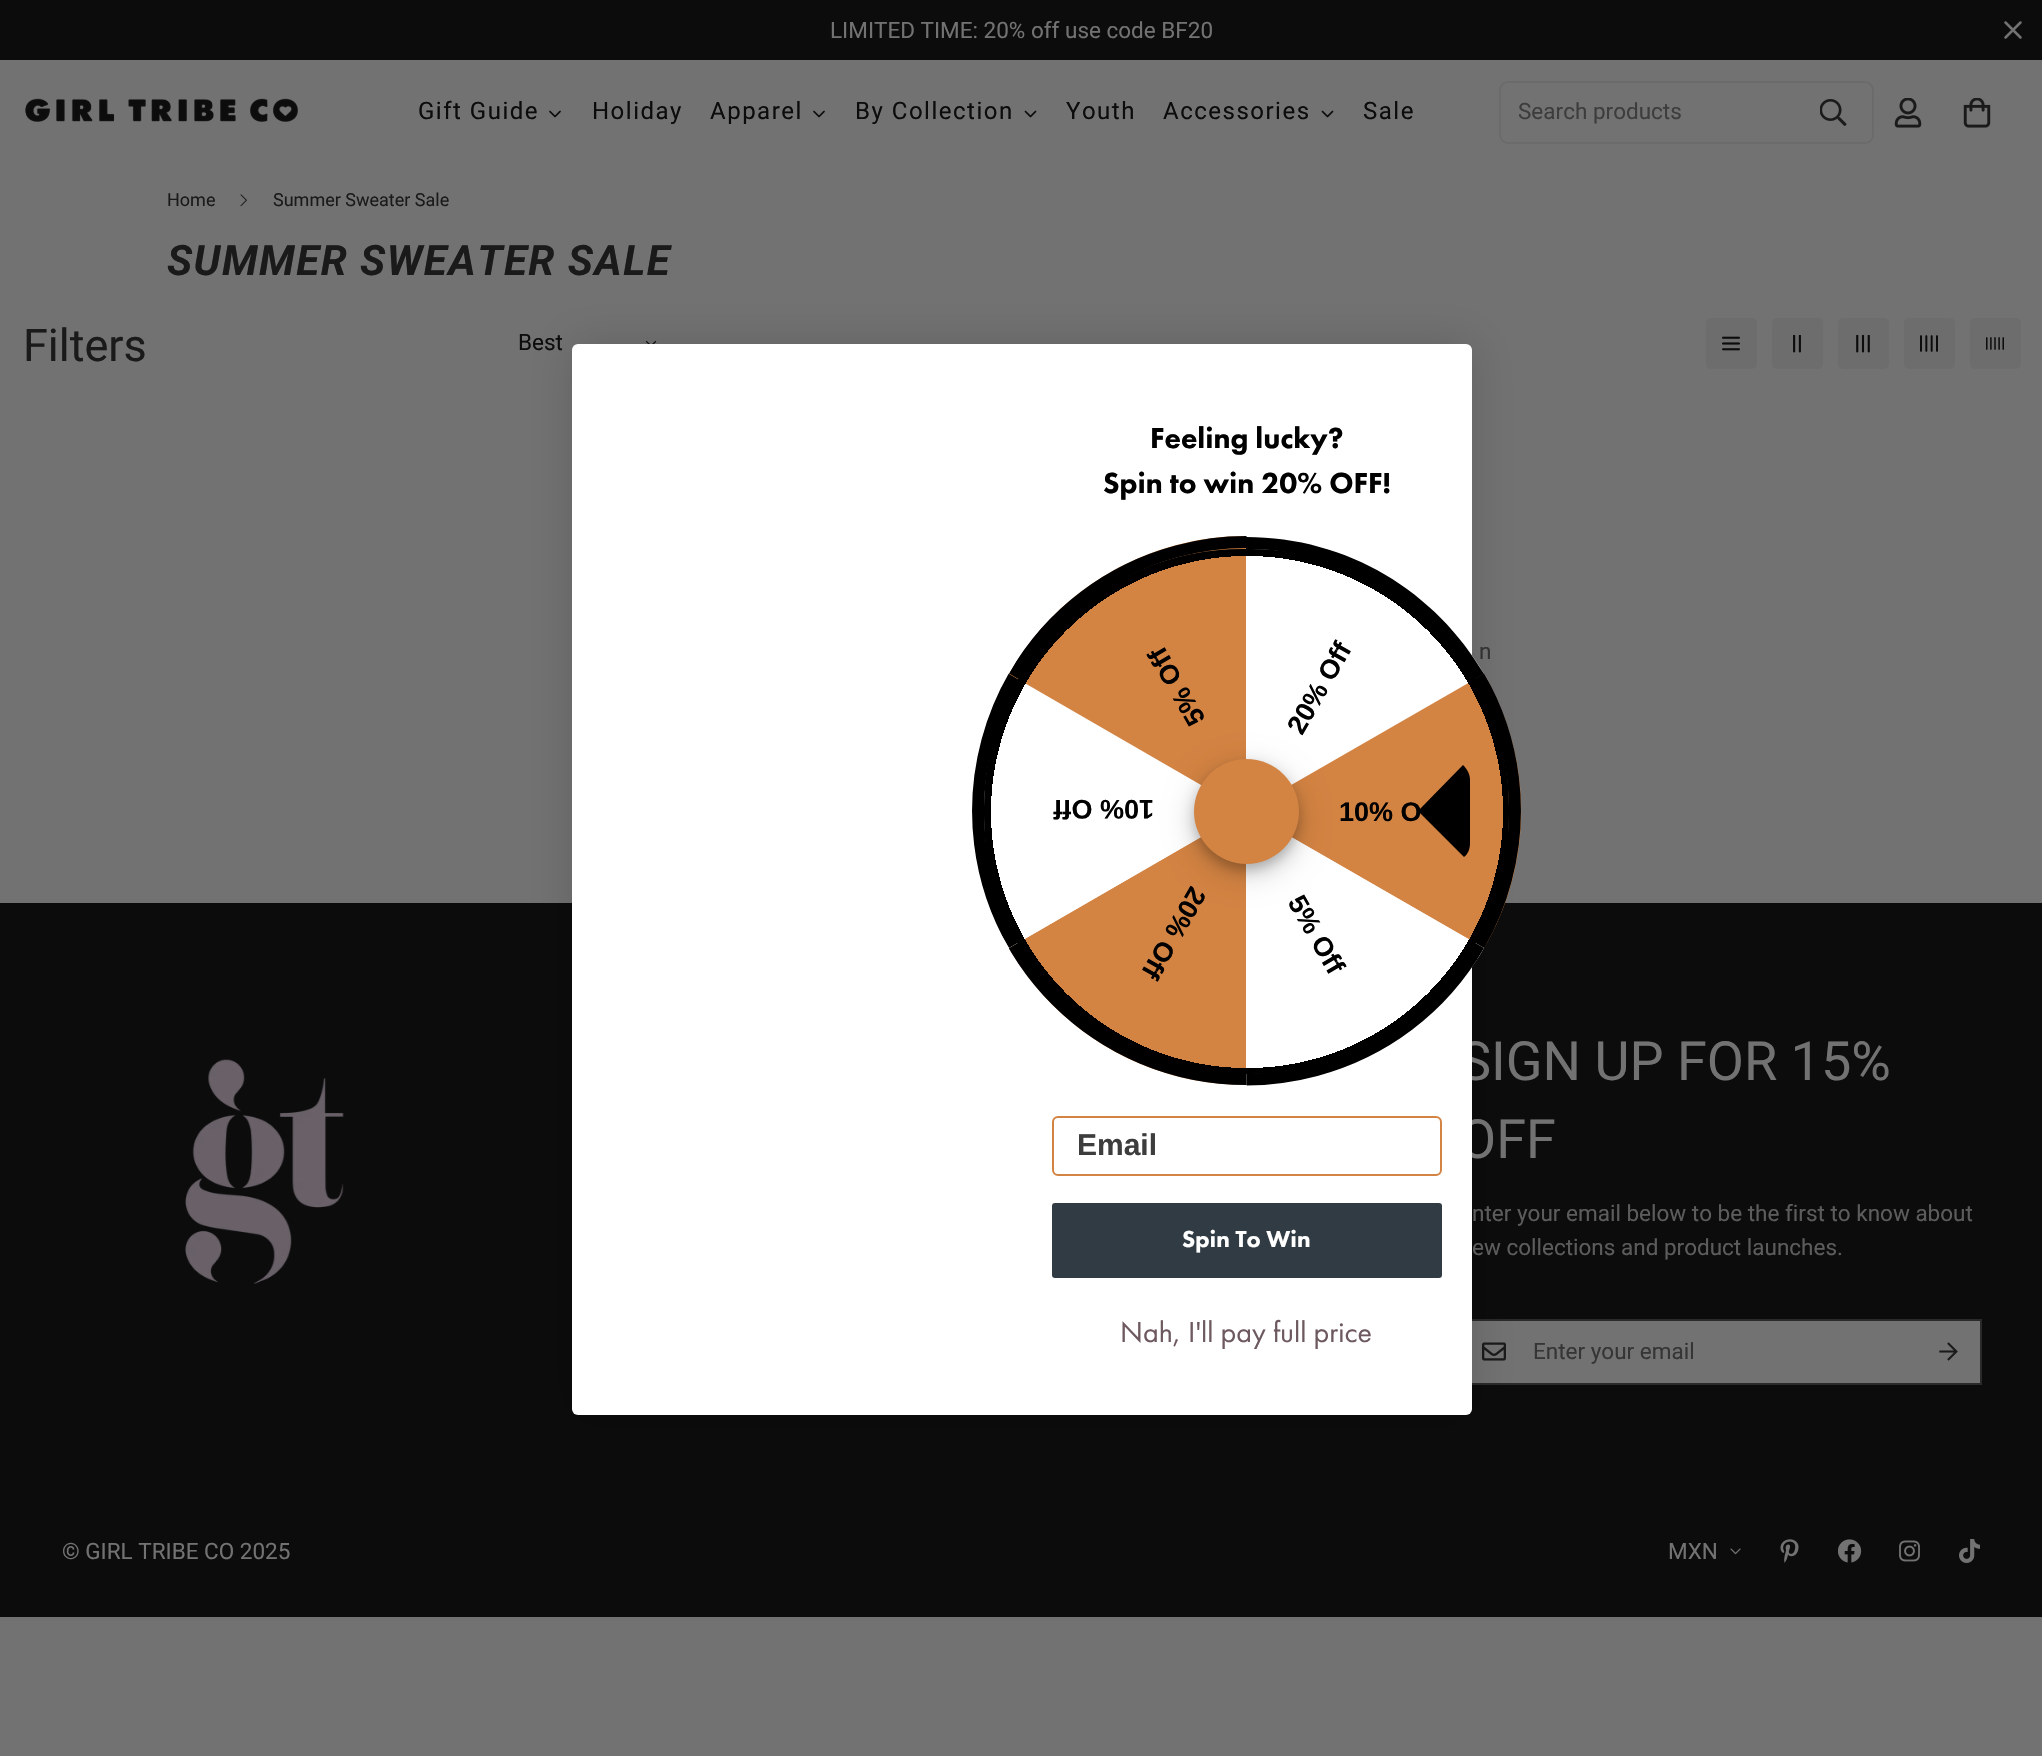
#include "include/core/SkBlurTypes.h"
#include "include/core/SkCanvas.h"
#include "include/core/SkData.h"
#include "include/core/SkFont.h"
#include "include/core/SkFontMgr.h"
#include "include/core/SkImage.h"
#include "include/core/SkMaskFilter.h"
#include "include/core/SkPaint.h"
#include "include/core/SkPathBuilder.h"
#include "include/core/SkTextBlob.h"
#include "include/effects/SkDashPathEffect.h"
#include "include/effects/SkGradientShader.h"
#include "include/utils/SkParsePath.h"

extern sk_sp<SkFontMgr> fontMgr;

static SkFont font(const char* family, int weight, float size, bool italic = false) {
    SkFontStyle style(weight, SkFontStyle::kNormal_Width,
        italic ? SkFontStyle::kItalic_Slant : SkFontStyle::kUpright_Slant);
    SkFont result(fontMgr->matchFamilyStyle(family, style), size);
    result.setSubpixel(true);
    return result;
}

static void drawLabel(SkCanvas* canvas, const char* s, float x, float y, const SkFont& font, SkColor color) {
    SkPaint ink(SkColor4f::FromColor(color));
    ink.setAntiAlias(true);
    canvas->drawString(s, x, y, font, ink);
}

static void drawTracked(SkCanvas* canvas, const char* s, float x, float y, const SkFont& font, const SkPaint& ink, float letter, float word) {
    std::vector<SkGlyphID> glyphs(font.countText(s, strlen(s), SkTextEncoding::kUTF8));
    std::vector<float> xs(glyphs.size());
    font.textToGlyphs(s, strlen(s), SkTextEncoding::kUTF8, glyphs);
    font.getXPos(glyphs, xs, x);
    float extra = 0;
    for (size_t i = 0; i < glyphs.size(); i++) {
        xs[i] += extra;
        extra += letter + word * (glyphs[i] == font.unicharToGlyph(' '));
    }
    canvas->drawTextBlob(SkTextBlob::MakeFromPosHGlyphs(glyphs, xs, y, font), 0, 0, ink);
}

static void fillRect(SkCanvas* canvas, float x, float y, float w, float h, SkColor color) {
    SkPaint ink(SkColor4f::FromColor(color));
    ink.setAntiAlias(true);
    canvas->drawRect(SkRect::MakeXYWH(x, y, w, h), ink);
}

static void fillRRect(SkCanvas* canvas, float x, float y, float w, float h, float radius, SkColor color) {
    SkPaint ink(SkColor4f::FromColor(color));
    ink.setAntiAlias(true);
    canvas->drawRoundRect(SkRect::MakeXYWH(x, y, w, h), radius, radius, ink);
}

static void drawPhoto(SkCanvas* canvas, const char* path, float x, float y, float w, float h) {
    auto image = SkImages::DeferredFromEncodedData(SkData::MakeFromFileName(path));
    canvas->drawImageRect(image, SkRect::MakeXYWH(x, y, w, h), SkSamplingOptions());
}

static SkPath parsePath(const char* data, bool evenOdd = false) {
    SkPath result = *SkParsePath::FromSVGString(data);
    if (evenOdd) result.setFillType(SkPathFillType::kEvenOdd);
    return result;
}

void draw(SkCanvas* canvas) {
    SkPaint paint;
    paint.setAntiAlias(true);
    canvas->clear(0xFF727272);
    fillRect(canvas, 0, 0, 2042, 60, 0xFF0C0C0C);
    SkFont font1 = font("Roboto", 400, 22.5f);
    drawLabel(canvas, "LIMITED TIME: 20% off use code BF20", 830, 38, font1, 0xFF727272);
    paint.setStroke(true);
    paint.setStrokeWidth(2.5f);
    paint.setStrokeCap(SkPaint::kRound_Cap);
    paint.setStrokeJoin(SkPaint::kRound_Join);
    paint.setColor(0xFF727272);
    canvas->drawPath(parsePath("M2005.5 37.5L2020.5 22.5M2005.5 22.5L2020.5 37.5"), paint);
    drawPhoto(canvas, "assets/img1.png", 25, 98, 273, 24);
    SkFont font2 = font("Roboto", 400, 24);
    paint.setStroke(false);
    paint.setColor(0xFF0C0C0C);
    drawTracked(canvas, "Gift Guide", 418, 119, font2, paint, 1.5f, 0);
    drawPhoto(canvas, "assets/img2.png", 549, 110, 12, 8);
    drawTracked(canvas, "Holiday", 592, 119, font2, paint, 1.5f, 0);
    drawTracked(canvas, "Apparel", 710, 119, font2, paint, 1.5f, 0);
    drawPhoto(canvas, "assets/img2.png", 813, 110, 12, 8);
    drawTracked(canvas, "By Collection", 855, 119, font2, paint, 1.5f, 0);
    drawPhoto(canvas, "assets/img3.png", 1024, 110, 13, 8);
    drawTracked(canvas, "Youth", 1066, 119, font2, paint, 1.5f, 0);
    drawTracked(canvas, "Accessories", 1163, 119, font2, paint, 1.5f, 0);
    drawPhoto(canvas, "assets/img3.png", 1321, 110, 13, 8);
    drawTracked(canvas, "Sale", 1363, 119, font2, paint, 1.5f, 0);
    paint.setStroke(true);
    paint.setStrokeWidth(2);
    paint.setStrokeCap(SkPaint::kButt_Cap);
    paint.setStrokeJoin(SkPaint::kMiter_Join);
    paint.setColor(0xFF6B6B6B);
    canvas->drawRoundRect(SkRect::MakeXYWH(1500, 82, 373, 61), 8, 8, paint);
    drawLabel(canvas, "Search products", 1518, 119, font1, 0xFF3D3D3D);
    drawPhoto(canvas, "assets/img4.png", 1820, 99, 27, 27);
    drawPhoto(canvas, "assets/img5.png", 1894, 98, 28, 30);
    drawPhoto(canvas, "assets/img6.png", 1963, 98, 28, 30);
    SkFont font3 = font("Roboto", 400, 18);
    drawLabel(canvas, "Home", 167, 206, font3, 0xFF1A1A1A);
    drawPhoto(canvas, "assets/img7.png", 240, 194, 7, 13);
    drawLabel(canvas, "Summer Sweater Sale", 273, 206, font3, 0xFF1A1A1A);
    SkFont font4 = font("Roboto", 700, 42, true);
    paint.setStroke(false);
    paint.setColor(0xFF1A1A1A);
    drawTracked(canvas, "SUMMER SWEATER SALE", 167, 275, font4, paint, 1.5f, 0);
    SkFont font5 = font("Roboto", 400, 45);
    drawLabel(canvas, "Filters", 23, 361, font5, 0xFF1A1A1A);
    drawLabel(canvas, "Best", 518, 350, font1, 0xFF0C0C0C);
    drawPhoto(canvas, "assets/img8.png", 645, 340, 12, 4);
    fillRRect(canvas, 1706, 318, 51, 51, 5, 0xFF6D6D6D);
    drawPhoto(canvas, "assets/img9.png", 1722, 336, 18, 15);
    fillRRect(canvas, 1772, 318, 51, 51, 5, 0xFF6D6D6D);
    drawPhoto(canvas, "assets/img10.png", 1793, 335, 8, 18);
    fillRRect(canvas, 1838, 318, 51, 51, 5, 0xFF6D6D6D);
    drawPhoto(canvas, "assets/img11.png", 1856, 335, 14, 18);
    fillRRect(canvas, 1904, 318, 51, 51, 5, 0xFF6D6D6D);
    drawPhoto(canvas, "assets/img12.png", 1920, 335, 18, 17);
    fillRRect(canvas, 1970, 318, 51, 51, 5, 0xFF6D6D6D);
    drawPhoto(canvas, "assets/img13.png", 1986, 337, 18, 13);
    drawLabel(canvas, "n", 1479, 659, font1, 0xFF353535);
    fillRect(canvas, 0, 903, 2042, 714, 0xFF0C0C0C);
    fillRect(canvas, 1472, 1321, 508, 62, 0xFF727272);
    paint.setStroke(true);
    paint.setColor(0xFF2A2A2A);
    canvas->drawRect(SkRect::MakeXYWH(1461, 1320, 520, 64), paint);
    drawPhoto(canvas, "assets/img15.png", 1482, 1342, 24, 19);
    paint.setStroke(false);
    paint.setColor(0x26000000);
    paint.setMaskFilter(SkMaskFilter::MakeBlur(kNormal_SkBlurStyle, 22.5f));
    canvas->drawRoundRect(SkRect::MakeXYWH(572, 344, 900, 1071), 6, 6, paint);
    paint.setMaskFilter(nullptr);
    SkFont font6 = font("Roboto", 400, 54);
    drawLabel(canvas, "SIGN UP FOR 15%", 1459, 1080, font6, 0xFF727272);
    drawLabel(canvas, "OFF", 1459, 1158, font6, 0xFF727272);
    fillRRect(canvas, 572, 344, 900, 1071, 6, 0xFFFFFFFF);
    SkFont font7 = font("Futura PT", 900, 30);
    drawLabel(canvas, "Feeling lucky?", 1150, 448, font7, 0xFF000000);
    drawLabel(canvas, "Spin to win 20% OFF!", 1103, 493, font7, 0xFF000000);
    paint.setColor(0xFFD38342);
    canvas->drawPath(parsePath("M1246 1085V811L1009 948C1056 1030 1145 1085 1246 1085Z"), paint);
    paint.setColor(0xFFFFFFFF);
    canvas->drawPath(parsePath("M1246 811L1484 674C1436 592 1348 537 1246 537Z"), paint);
    paint.setColor(0xFF000000);
    canvas->drawPath(parsePath("M1246 537V549C1343 549 1428 602 1474 680L1484 674C1436 592 1348 537 1246 537Z"), paint);
    SkFont font8 = font("Liberation Sans", 700, 27);
    canvas->save();
    canvas->rotate(-60, 1302, 736);
    drawLabel(canvas, "20% Off", 1302, 736, font8, 0xFF000000);
    canvas->restore();
    paint.setColor(0xFFD38342);
    canvas->drawPath(parsePath("M1484 674L1246 811L1484 948C1532 866 1535 762 1484 674Z"), paint);
    canvas->save();
    canvas->clipPath(parsePath("M1246.5 811L1484 673.5L1621.5 911L1484 948Z"), true);
    paint.setStroke(true);
    paint.setStrokeWidth(12);
    paint.setColor(0xFF000000);
    canvas->drawPath(parsePath("M1479 676.5C1553 805 1509 969 1381 1043.5C1252.5 1117.5 1088 1073.5 1014 945C940 816.5 984 652.5 1112 578C1240.5 504 1405 548 1479 676.5Z"), paint);
    canvas->restore();
    drawLabel(canvas, "10% O", 1339, 821, font8, 0xFF000000);
    paint.setStroke(false);
    paint.setColor(0xFFFFFFFF);
    canvas->drawPath(parsePath("M1484 948L1246 811V1085C1341 1085 1433 1036 1484 948Z"), paint);
    canvas->save();
    canvas->clipPath(parsePath("M1246.5 811L1484 948L1347 1185.5L1246.5 1085.5Z"), true);
    paint.setStroke(true);
    paint.setColor(0xFF000000);
    canvas->drawPath(parsePath("M1479 945C1405 1073.5 1240.5 1117.5 1112 1043.5C984 969 940 805 1014 676.5C1088 548 1252.5 504 1381 578C1509 652.5 1553 816.5 1479 945Z"), paint);
    canvas->restore();
    canvas->save();
    canvas->clipPath(parsePath("M1246.5 811V1085H972L1009 948Z"), true);
    canvas->drawPath(parsePath("M1246.5 1079C1098 1079 978 959 978 811C978 662.5 1098 542 1246.5 542C1395 542 1515 662.5 1515 811C1515 959 1395 1079 1246.5 1079Z"), paint);
    canvas->restore();
    canvas->save();
    canvas->rotate(120, 1191, 885);
    drawLabel(canvas, "20% Off", 1191, 885, font8, 0xFF000000);
    canvas->restore();
    paint.setStroke(false);
    paint.setColor(0xFFFFFFFF);
    canvas->drawPath(parsePath("M1246 811L1009 674C961 756 958 860 1009 948Z"), paint);
    canvas->save();
    canvas->clipPath(parsePath("M1246.5 811L1009 948L871.5 710.5L1009 673.5Z"), true);
    paint.setStroke(true);
    paint.setColor(0xFF000000);
    canvas->drawPath(parsePath("M1014 945C940 816.5 984 652.5 1112 578C1240.5 504 1405 548 1479 676.5C1553 805 1509 969 1381 1043.5C1252.5 1117.5 1088 1073.5 1014 945Z"), paint);
    canvas->restore();
    canvas->save();
    canvas->rotate(180, 1154, 800);
    drawLabel(canvas, "10% Off", 1154, 800, font8, 0xFF000000);
    canvas->restore();
    paint.setStroke(false);
    paint.setColor(0xFFD38342);
    canvas->drawPath(parsePath("M1246 811V536C1152 536 1060 585 1009 674Z"), paint);
    canvas->save();
    canvas->clipPath(parsePath("M1246.5 811L1009 673.5L1146 436L1246.5 536Z"), true);
    paint.setStroke(true);
    paint.setColor(0xFF000000);
    canvas->drawPath(parsePath("M1014 676.5C1088 548 1252.5 504 1381 578C1509 652.5 1553 816.5 1479 945C1405 1073.5 1240.5 1117.5 1112 1043.5C984 969 940 805 1014 676.5Z"), paint);
    canvas->restore();
    canvas->save();
    canvas->rotate(-120, 1206, 719);
    drawLabel(canvas, "5% Off", 1206, 719, font8, 0xFF000000);
    canvas->restore();
    canvas->save();
    canvas->rotate(60, 1287, 902);
    drawLabel(canvas, "5% Off", 1287, 902, font8, 0xFF000000);
    canvas->restore();
    paint.setStroke(false);
    paint.setColor(0x33000000);
    paint.setMaskFilter(SkMaskFilter::MakeBlur(kNormal_SkBlurStyle, 15));
    canvas->drawRoundRect(SkRect::MakeXYWH(1194, 768, 105, 105), 52.5f, 52.5f, paint);
    paint.setMaskFilter(nullptr);
    paint.setMaskFilter(SkMaskFilter::MakeBlur(kNormal_SkBlurStyle, 6));
    canvas->drawRoundRect(SkRect::MakeXYWH(1194, 765, 105, 105), 52.5f, 52.5f, paint);
    paint.setMaskFilter(nullptr);
    paint.setColor(0xFFD38342);
    canvas->drawCircle(1246.5f, 811.5f, 52.5f, paint);
    paint.setColor(0xFF000000);
    canvas->drawPath(parsePath("M1470 780C1470 774 1467 769 1463 765L1418 811L1464 857C1468 854 1470 849 1470 843Z"), paint);
    {
        const SkColor colors[] = {0x00000000, 0xFF000000};
        const float stops[] = {0.69f, 0.69f};
        paint.setShader(SkGradientShader::MakeRadial({1247, 812}, 371, colors, stops, 2, SkTileMode::kClamp));
        paint.setAlpha(255);
    }
    canvas->drawRoundRect(SkRect::MakeXYWH(984, 549, 525, 525), 258, 258, paint);
    paint.setStroke(true);
    paint.setStrokeWidth(2);
    paint.setShader(nullptr);
    paint.setColor(0xFFD38342);
    canvas->drawRoundRect(SkRect::MakeXYWH(1053, 1117, 388, 58), 5, 5, paint);
    SkFont font9 = font("Liberation Sans", 700, 30);
    drawLabel(canvas, "Email", 1077, 1155, font9, 0xFF3D3D3D);
    fillRRect(canvas, 1052, 1203, 390, 75, 3, 0xFF303B43);
    SkFont font10 = font("Futura PT", 900, 24);
    drawLabel(canvas, "Spin To Win", 1182, 1247, font10, 0xFFFFFFFF);
    SkFont font11 = font("Futura PT", 400, 30);
    drawLabel(canvas, "Nah, I'll pay full price", 1120, 1342, font11, 0xFF6D595E);
    drawPhoto(canvas, "assets/img14.png", 185, 1059, 159, 225);
    drawLabel(canvas, "nter your email below to be the first to know about", 1472, 1221, font1, 0xFF5C5C5C);
    drawLabel(canvas, "ew collections and product launches.", 1472, 1255, font1, 0xFF5C5C5C);
    drawLabel(canvas, "Enter your email", 1533, 1359, font1, 0xFF353535);
    drawPhoto(canvas, "assets/img16.png", 1939, 1342, 19, 19);
    drawLabel(canvas, "© GIRL TRIBE CO 2025", 62, 1559, font1, 0xFF727272);
    drawLabel(canvas, "MXN", 1668, 1559, font1, 0xFF727272);
    drawPhoto(canvas, "assets/img17.png", 1730, 1548, 11, 7);
    drawPhoto(canvas, "assets/img18.png", 1780, 1539, 19, 24);
    drawPhoto(canvas, "assets/img19.png", 1838, 1539, 24, 24);
    drawPhoto(canvas, "assets/img20.png", 1899, 1540, 21, 22);
    drawPhoto(canvas, "assets/img21.png", 1959, 1539, 21, 24);
}
